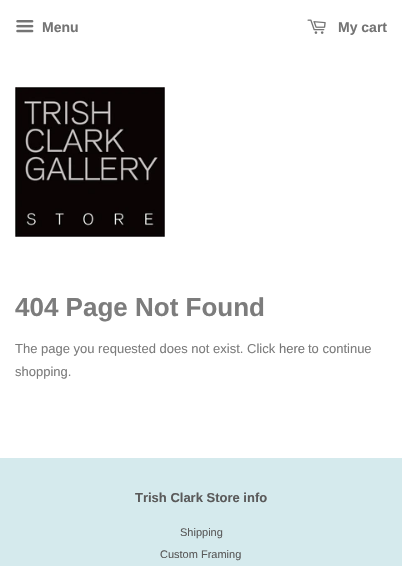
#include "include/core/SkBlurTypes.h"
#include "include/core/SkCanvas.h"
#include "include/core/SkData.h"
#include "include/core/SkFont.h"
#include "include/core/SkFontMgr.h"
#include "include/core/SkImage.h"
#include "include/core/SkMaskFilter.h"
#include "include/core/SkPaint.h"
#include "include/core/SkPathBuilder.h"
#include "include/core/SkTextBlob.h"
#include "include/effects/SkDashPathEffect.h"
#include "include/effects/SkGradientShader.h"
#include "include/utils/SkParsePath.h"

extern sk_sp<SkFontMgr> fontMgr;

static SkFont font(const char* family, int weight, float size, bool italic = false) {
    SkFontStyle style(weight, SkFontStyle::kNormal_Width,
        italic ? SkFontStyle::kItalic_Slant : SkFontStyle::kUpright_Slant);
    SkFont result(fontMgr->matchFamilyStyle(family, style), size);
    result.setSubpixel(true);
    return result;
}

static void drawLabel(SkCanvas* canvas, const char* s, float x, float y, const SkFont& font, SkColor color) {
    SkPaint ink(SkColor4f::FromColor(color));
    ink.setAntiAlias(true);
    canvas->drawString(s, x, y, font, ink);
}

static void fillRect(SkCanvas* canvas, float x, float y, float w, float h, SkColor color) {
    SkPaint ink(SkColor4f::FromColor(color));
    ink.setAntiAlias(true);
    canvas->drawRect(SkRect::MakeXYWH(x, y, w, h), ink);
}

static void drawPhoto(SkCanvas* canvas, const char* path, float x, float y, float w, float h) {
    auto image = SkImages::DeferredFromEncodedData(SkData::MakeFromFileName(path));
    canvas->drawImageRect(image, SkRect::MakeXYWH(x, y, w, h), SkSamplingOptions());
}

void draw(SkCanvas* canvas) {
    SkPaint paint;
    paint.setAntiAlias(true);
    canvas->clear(0xFFFFFFFF);
    drawPhoto(canvas, "assets/img1.png", 16, 20, 18, 13);
    SkFont font1 = font("Liberation Sans", 700, 14);
    drawLabel(canvas, "Menu", 42, 32, font1, 0xFF747474);
    drawPhoto(canvas, "assets/img2.png", 307, 19, 19, 15);
    drawLabel(canvas, "My cart", 338, 32, font1, 0xFF747474);
    drawPhoto(canvas, "assets/img3.png", 15, 87, 150, 150);
    SkFont font2 = font("Liberation Sans", 700, 26);
    drawLabel(canvas, "404 Page Not Found", 15, 316, font2, 0xFF7C7C7C);
    SkFont font3 = font("Liberation Sans", 400, 13);
    drawLabel(canvas, "The page you requested does not exist. Click", 15, 353, font3, 0xFF7C7C7C);
    drawLabel(canvas, "here", 279, 353, font3, 0xFF747474);
    drawLabel(canvas, "to continue", 308, 353, font3, 0xFF7C7C7C);
    drawLabel(canvas, "shopping.", 15, 376, font3, 0xFF7C7C7C);
    fillRect(canvas, 0, 458, 402, 108, 0xFFD5EAED);
    SkFont font4 = font("Liberation Sans", 700, 13);
    drawLabel(canvas, "Trish Clark Store info", 135, 502, font4, 0xFF5A5A5A);
    SkFont font5 = font("Liberation Sans", 400, 11);
    drawLabel(canvas, "Shipping", 180, 536, font5, 0xFF5A5A5A);
    drawLabel(canvas, "Custom Framing", 160, 558, font5, 0xFF5A5A5A);
}
